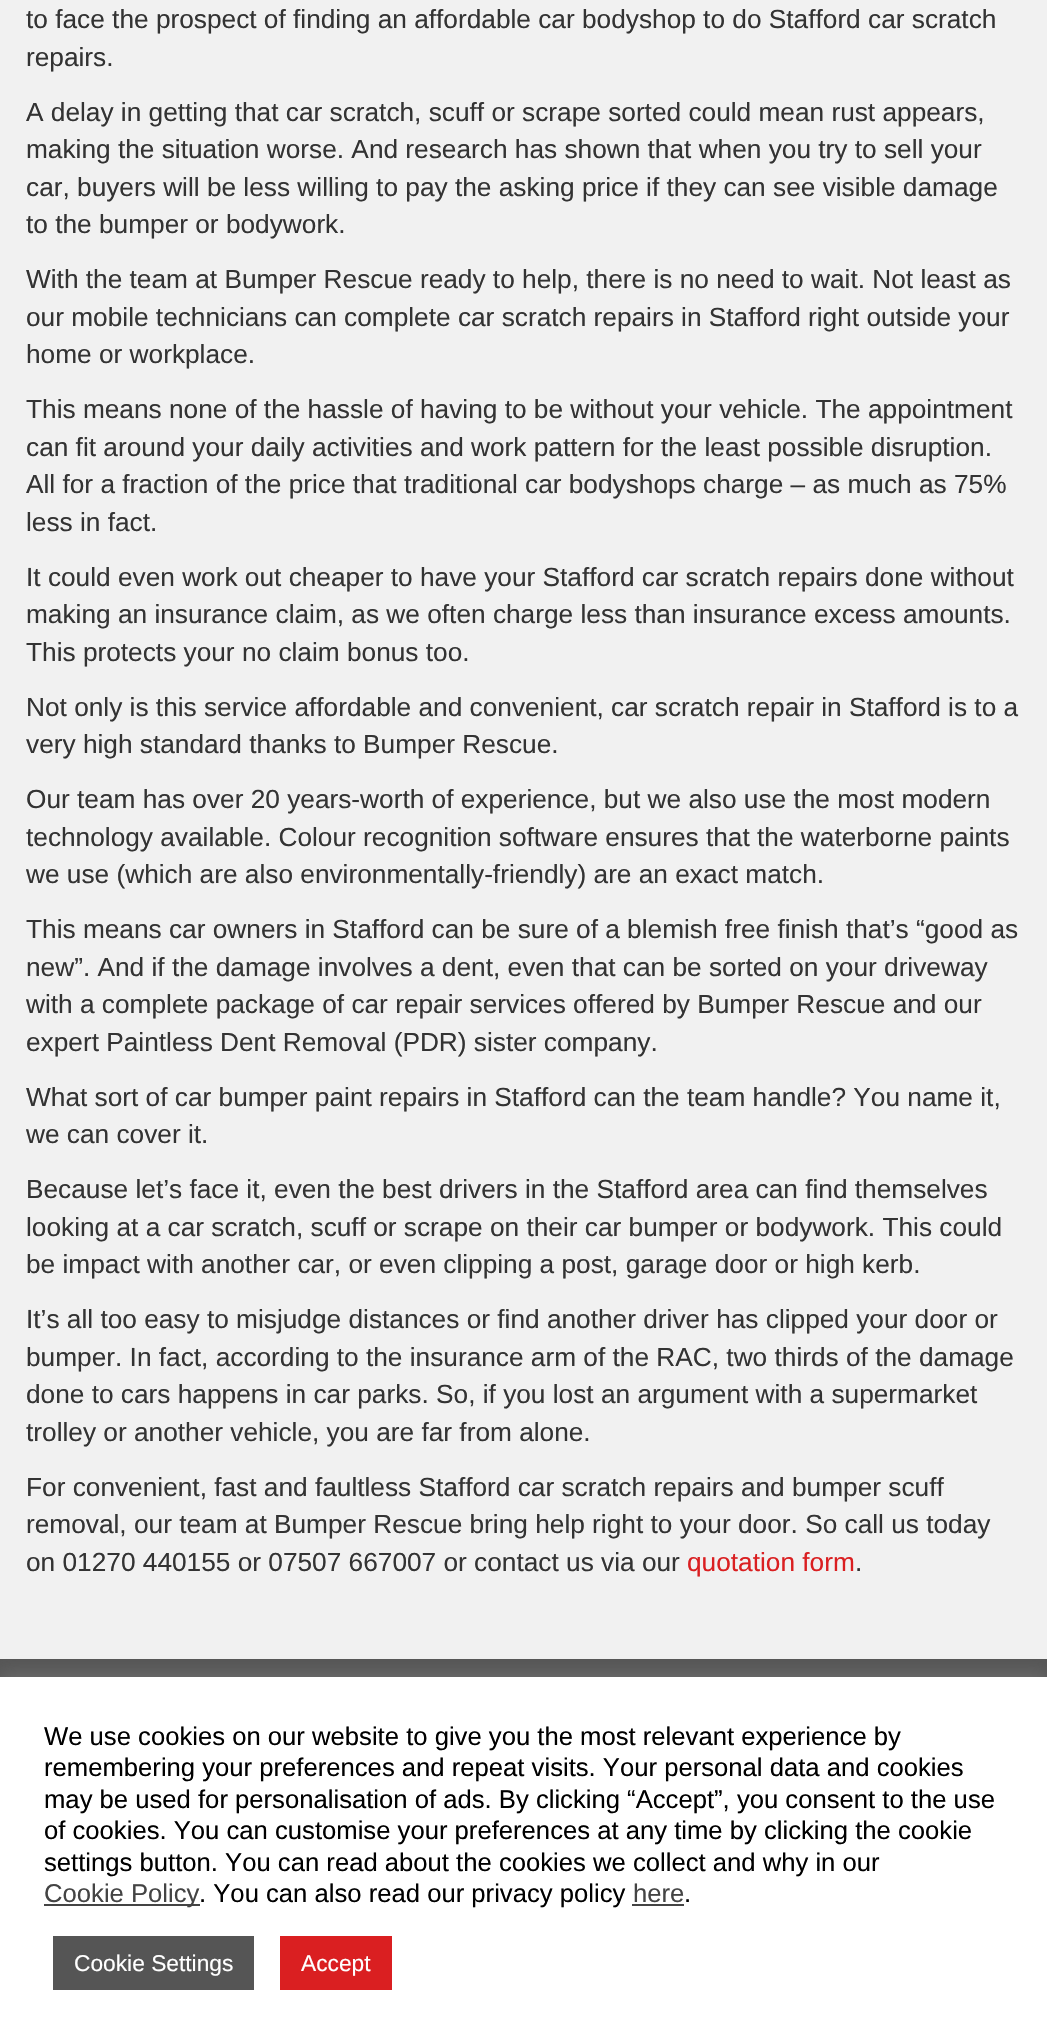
#include "include/core/SkBlurTypes.h"
#include "include/core/SkCanvas.h"
#include "include/core/SkData.h"
#include "include/core/SkFont.h"
#include "include/core/SkFontMgr.h"
#include "include/core/SkImage.h"
#include "include/core/SkMaskFilter.h"
#include "include/core/SkPaint.h"
#include "include/core/SkPathBuilder.h"
#include "include/core/SkTextBlob.h"
#include "include/effects/SkDashPathEffect.h"
#include "include/effects/SkGradientShader.h"
#include "include/utils/SkParsePath.h"

extern sk_sp<SkFontMgr> fontMgr;

static SkFont font(const char* family, int weight, float size, bool italic = false) {
    SkFontStyle style(weight, SkFontStyle::kNormal_Width,
        italic ? SkFontStyle::kItalic_Slant : SkFontStyle::kUpright_Slant);
    SkFont result(fontMgr->matchFamilyStyle(family, style), size);
    result.setSubpixel(true);
    return result;
}

static void drawLabel(SkCanvas* canvas, const char* s, float x, float y, const SkFont& font, SkColor color) {
    SkPaint ink(SkColor4f::FromColor(color));
    ink.setAntiAlias(true);
    canvas->drawString(s, x, y, font, ink);
}

static void fillRect(SkCanvas* canvas, float x, float y, float w, float h, SkColor color) {
    SkPaint ink(SkColor4f::FromColor(color));
    ink.setAntiAlias(true);
    canvas->drawRect(SkRect::MakeXYWH(x, y, w, h), ink);
}

void draw(SkCanvas* canvas) {
    SkPaint paint;
    paint.setAntiAlias(true);
    canvas->clear(0xFFF1F1F1);
    SkFont font1 = font("Liberation Sans", 400, 26.25f);
    drawLabel(canvas, "to face the prospect of finding an affordable car bodyshop to do Stafford car scratch", 26, 28, font1, 0xFF333333);
    drawLabel(canvas, "repairs.", 26, 66, font1, 0xFF333333);
    drawLabel(canvas, "A delay in getting that car scratch, scuff or scrape sorted could mean rust appears,", 26, 121, font1, 0xFF333333);
    drawLabel(canvas, "making the situation worse. And research has shown that when you try to sell your", 26, 158, font1, 0xFF333333);
    drawLabel(canvas, "car, buyers will be less willing to pay the asking price if they can see visible damage", 26, 196, font1, 0xFF333333);
    drawLabel(canvas, "to the bumper or bodywork.", 26, 233, font1, 0xFF333333);
    drawLabel(canvas, "With the team at Bumper Rescue ready to help, there is no need to wait. Not least as", 26, 288, font1, 0xFF333333);
    drawLabel(canvas, "our mobile technicians can complete car scratch repairs in Stafford right outside your", 26, 326, font1, 0xFF333333);
    drawLabel(canvas, "home or workplace.", 26, 363, font1, 0xFF333333);
    drawLabel(canvas, "This means none of the hassle of having to be without your vehicle. The appointment", 26, 418, font1, 0xFF333333);
    drawLabel(canvas, "can fit around your daily activities and work pattern for the least possible disruption.", 26, 456, font1, 0xFF333333);
    drawLabel(canvas, "All for a fraction of the price that traditional car bodyshops charge – as much as 75%", 26, 493, font1, 0xFF333333);
    drawLabel(canvas, "less in fact.", 26, 531, font1, 0xFF333333);
    drawLabel(canvas, "It could even work out cheaper to have your Stafford car scratch repairs done without", 26, 586, font1, 0xFF333333);
    drawLabel(canvas, "making an insurance claim, as we often charge less than insurance excess amounts.", 26, 623, font1, 0xFF333333);
    drawLabel(canvas, "This protects your no claim bonus too.", 26, 661, font1, 0xFF333333);
    drawLabel(canvas, "Not only is this service affordable and convenient, car scratch repair in Stafford is to a", 26, 716, font1, 0xFF333333);
    drawLabel(canvas, "very high standard thanks to Bumper Rescue.", 26, 753, font1, 0xFF333333);
    drawLabel(canvas, "Our team has over 20 years-worth of experience, but we also use the most modern", 26, 808, font1, 0xFF333333);
    drawLabel(canvas, "technology available. Colour recognition software ensures that the waterborne paints", 26, 846, font1, 0xFF333333);
    drawLabel(canvas, "we use (which are also environmentally-friendly) are an exact match.", 26, 883, font1, 0xFF333333);
    drawLabel(canvas, "This means car owners in Stafford can be sure of a blemish free finish that’s “good as", 26, 938, font1, 0xFF333333);
    drawLabel(canvas, "new”. And if the damage involves a dent, even that can be sorted on your driveway", 26, 976, font1, 0xFF333333);
    drawLabel(canvas, "with a complete package of car repair services offered by Bumper Rescue and our", 26, 1013, font1, 0xFF333333);
    drawLabel(canvas, "expert Paintless Dent Removal (PDR) sister company.", 26, 1051, font1, 0xFF333333);
    drawLabel(canvas, "What sort of car bumper paint repairs in Stafford can the team handle? You name it,", 26, 1106, font1, 0xFF333333);
    drawLabel(canvas, "we can cover it.", 26, 1143, font1, 0xFF333333);
    drawLabel(canvas, "Because let’s face it, even the best drivers in the Stafford area can find themselves", 26, 1198, font1, 0xFF333333);
    drawLabel(canvas, "looking at a car scratch, scuff or scrape on their car bumper or bodywork. This could", 26, 1236, font1, 0xFF333333);
    drawLabel(canvas, "be impact with another car, or even clipping a post, garage door or high kerb.", 26, 1273, font1, 0xFF333333);
    drawLabel(canvas, "It’s all too easy to misjudge distances or find another driver has clipped your door or", 26, 1328, font1, 0xFF333333);
    drawLabel(canvas, "bumper. In fact, according to the insurance arm of the RAC, two thirds of the damage", 26, 1366, font1, 0xFF333333);
    drawLabel(canvas, "done to cars happens in car parks. So, if you lost an argument with a supermarket", 26, 1403, font1, 0xFF333333);
    drawLabel(canvas, "trolley or another vehicle, you are far from alone.", 26, 1441, font1, 0xFF333333);
    drawLabel(canvas, "For convenient, fast and faultless Stafford car scratch repairs and bumper scuff", 26, 1496, font1, 0xFF333333);
    drawLabel(canvas, "removal, our team at Bumper Rescue bring help right to your door. So call us today", 26, 1533, font1, 0xFF333333);
    drawLabel(canvas, "on 01270 440155 or 07507 667007 or contact us via our", 26, 1571, font1, 0xFF333333);
    drawLabel(canvas, "quotation form", 687, 1571, font1, 0xFFDA1F21);
    drawLabel(canvas, ".", 855, 1571, font1, 0xFF333333);
    fillRect(canvas, 0, 1659, 1047, 18, 0xFF555555);
    paint.setColor(0x4DACABAB);
    paint.setMaskFilter(SkMaskFilter::MakeBlur(kNormal_SkBlurStyle, 9));
    canvas->drawRect(SkRect::MakeXYWH(0, 1675, 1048, 366), paint);
    paint.setMaskFilter(nullptr);
    fillRect(canvas, 0, 1677, 1047, 364, 0xFFFFFFFF);
    SkFont font2 = font("Liberation Sans", 400, 25.65f);
    drawLabel(canvas, "We use cookies on our website to give you the most relevant experience by", 44, 1745, font2, 0xFF000000);
    drawLabel(canvas, "remembering your preferences and repeat visits. Your personal data and cookies", 44, 1776, font2, 0xFF000000);
    drawLabel(canvas, "may be used for personalisation of ads. By clicking “Accept”, you consent to the use", 44, 1808, font2, 0xFF000000);
    drawLabel(canvas, "of cookies. You can customise your preferences at any time by clicking the cookie", 44, 1839, font2, 0xFF000000);
    drawLabel(canvas, "settings button. You can read about the cookies we collect and why in our", 44, 1871, font2, 0xFF000000);
    fillRect(canvas, 44, 1904, 156, 2, 0xFF444444);
    drawLabel(canvas, "Cookie Policy", 44, 1902, font2, 0xFF444444);
    drawLabel(canvas, ". You can also read our privacy policy", 199, 1902, font2, 0xFF000000);
    drawLabel(canvas, "here", 633, 1902, font2, 0xFF444444);
    fillRect(canvas, 632, 1904, 52, 2, 0xFF444444);
    drawLabel(canvas, ".", 684, 1902, font2, 0xFF000000);
    fillRect(canvas, 53, 1936, 201, 54, 0xFF555555);
    SkFont font3 = font("Liberation Sans", 400, 22.75f);
    drawLabel(canvas, "Cookie Settings", 74, 1971, font3, 0xFFFFFFFF);
    fillRect(canvas, 280, 1936, 112, 54, 0xFFDA1F21);
    drawLabel(canvas, "Accept", 301, 1971, font3, 0xFFFFFFFF);
}
